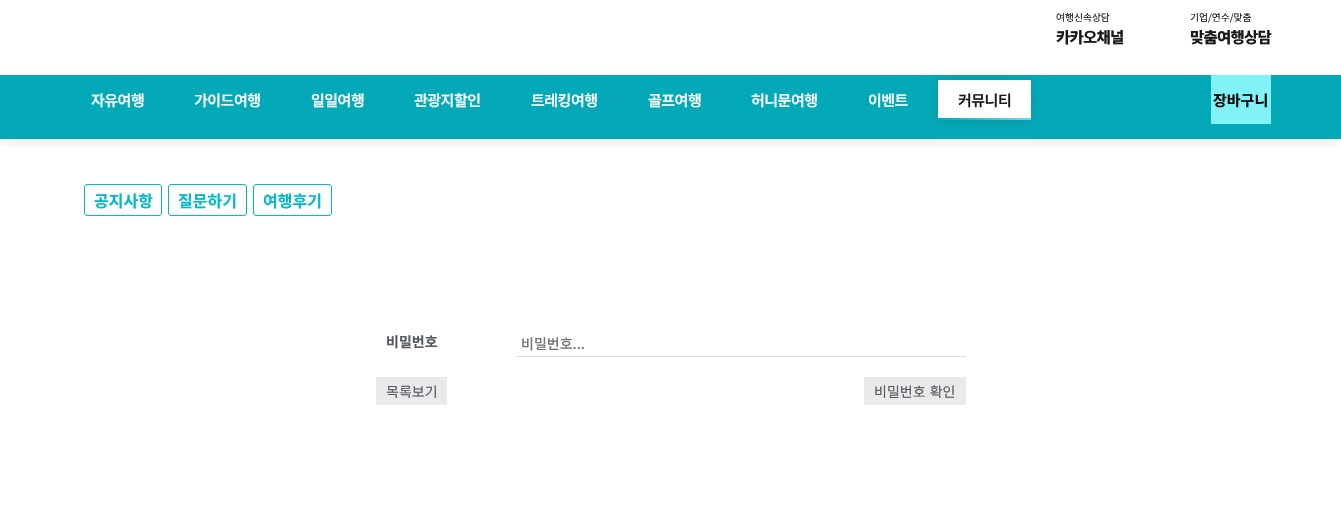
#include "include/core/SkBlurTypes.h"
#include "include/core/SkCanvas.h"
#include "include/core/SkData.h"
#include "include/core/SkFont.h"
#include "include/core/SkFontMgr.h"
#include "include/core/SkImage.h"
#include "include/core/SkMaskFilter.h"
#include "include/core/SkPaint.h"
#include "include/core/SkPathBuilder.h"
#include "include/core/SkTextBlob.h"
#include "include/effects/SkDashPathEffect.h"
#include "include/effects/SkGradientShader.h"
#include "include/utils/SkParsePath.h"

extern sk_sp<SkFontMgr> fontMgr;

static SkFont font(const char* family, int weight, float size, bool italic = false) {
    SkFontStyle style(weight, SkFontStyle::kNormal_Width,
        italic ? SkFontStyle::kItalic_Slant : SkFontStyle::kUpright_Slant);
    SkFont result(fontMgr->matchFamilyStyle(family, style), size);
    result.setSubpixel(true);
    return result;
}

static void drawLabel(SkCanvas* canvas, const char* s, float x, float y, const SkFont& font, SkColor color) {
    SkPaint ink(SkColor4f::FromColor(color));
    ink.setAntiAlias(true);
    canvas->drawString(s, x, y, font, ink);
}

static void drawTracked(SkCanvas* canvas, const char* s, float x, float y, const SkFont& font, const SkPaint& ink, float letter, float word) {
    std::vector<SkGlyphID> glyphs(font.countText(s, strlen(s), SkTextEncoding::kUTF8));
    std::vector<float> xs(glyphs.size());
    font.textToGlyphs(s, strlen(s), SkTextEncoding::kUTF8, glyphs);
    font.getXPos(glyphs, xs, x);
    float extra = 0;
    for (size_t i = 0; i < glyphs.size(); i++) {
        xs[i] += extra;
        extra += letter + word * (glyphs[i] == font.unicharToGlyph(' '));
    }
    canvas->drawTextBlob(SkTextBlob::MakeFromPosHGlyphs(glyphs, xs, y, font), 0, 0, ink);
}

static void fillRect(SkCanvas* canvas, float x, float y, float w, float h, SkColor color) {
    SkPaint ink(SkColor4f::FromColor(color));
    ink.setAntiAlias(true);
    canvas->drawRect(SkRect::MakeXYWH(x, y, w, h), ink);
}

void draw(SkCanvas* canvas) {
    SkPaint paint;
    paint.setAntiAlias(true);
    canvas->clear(0xFFFFFFFF);
    canvas->save();
    canvas->clipRect(SkRect::MakeXYWH(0, 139, 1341, 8));
    paint.setColor(0x26181818);
    paint.setMaskFilter(SkMaskFilter::MakeBlur(kNormal_SkBlurStyle, 7.5f));
    canvas->drawRect(SkRect::MakeXYWH(0, 0, 1341, 139), paint);
    paint.setMaskFilter(nullptr);
    canvas->restore();
    SkFont font1 = font("Noto Sans KR", 400, 9.75f);
    drawLabel(canvas, "여행신속상담", 1056, 21, font1, 0xFF181818);
    SkFont font2 = font("Noto Sans KR", 800, 15.5f);
    paint.setColor(0xFF181818);
    drawTracked(canvas, "카카오채널", 1056, 43, font2, paint, -0.75f, 0);
    drawLabel(canvas, "기업/연수/맞춤", 1190, 21, font1, 0xFF181818);
    drawTracked(canvas, "맞춤여행상담", 1190, 43, font2, paint, -0.75f, 0);
    fillRect(canvas, 0, 75, 1341, 64, 0xFF04A9B8);
    SkFont font3 = font("Noto Sans KR", 600, 15);
    paint.setColor(0xFFFFFFFF);
    drawTracked(canvas, "자유여행", 91, 106, font3, paint, -0.5f, 0);
    drawTracked(canvas, "가이드여행", 194, 106, font3, paint, -0.5f, 0);
    drawTracked(canvas, "일일여행", 311, 106, font3, paint, -0.5f, 0);
    drawTracked(canvas, "관광지할인", 414, 106, font3, paint, -0.5f, 0);
    drawTracked(canvas, "트레킹여행", 531, 106, font3, paint, -0.5f, 0);
    drawTracked(canvas, "골프여행", 648, 106, font3, paint, -0.5f, 0);
    drawTracked(canvas, "허니문여행", 751, 106, font3, paint, -0.5f, 0);
    drawTracked(canvas, "이벤트", 868, 106, font3, paint, -0.5f, 0);
    paint.setColor(0x26181818);
    paint.setMaskFilter(SkMaskFilter::MakeBlur(kNormal_SkBlurStyle, 7.5f));
    canvas->drawRect(SkRect::MakeXYWH(938, 80, 93, 40), paint);
    paint.setMaskFilter(nullptr);
    fillRect(canvas, 938, 80, 93, 38, 0xFFFFFFFF);
    paint.setColor(0xFF181818);
    drawTracked(canvas, "커뮤니티", 958, 106, font3, paint, -0.5f, 0);
    {
        const SkColor colors[] = {0xFF04A9B8, 0xFF82D2E2};
        const float stops[] = {0, 1};
        const SkPoint ends[] = {{938, 119}, {1031, 119}};
        paint.setShader(SkGradientShader::MakeLinear(ends, colors, stops, 2, SkTileMode::kClamp));
        paint.setAlpha(255);
    }
    canvas->drawRect(SkRect::MakeXYWH(938, 118, 93, 2), paint);
    fillRect(canvas, 1211, 75, 60, 49, 0xFF81F3F7);
    SkFont font4 = font("Noto Sans KR", 700, 15);
    drawLabel(canvas, "장바구니", 1213, 106, font4, 0xFF000000);
    paint.setStroke(true);
    paint.setStrokeWidth(1);
    paint.setShader(nullptr);
    paint.setColor(0xFF00BACB);
    canvas->drawRoundRect(SkRect::MakeXYWH(84.5f, 184.5f, 77, 31), 2.5f, 2.5f, paint);
    SkFont font5 = font("Noto Sans KR", 700, 16);
    drawLabel(canvas, "공지사항", 94, 207, font5, 0xFF00BACB);
    canvas->drawRoundRect(SkRect::MakeXYWH(168.5f, 184.5f, 78, 31), 2.5f, 2.5f, paint);
    drawLabel(canvas, "질문하기", 178, 207, font5, 0xFF00BACB);
    canvas->drawRoundRect(SkRect::MakeXYWH(253.5f, 184.5f, 78, 31), 2.5f, 2.5f, paint);
    drawLabel(canvas, "여행후기", 263, 207, font5, 0xFF00BACB);
    SkFont font6 = font("Noto Sans KR", 700, 14);
    drawLabel(canvas, "비밀번호", 386, 347, font6, 0xFF545861);
    fillRect(canvas, 516, 356, 450, 1, 0xFFDCDCDC);
    SkFont font7 = font("Noto Sans KR", 500, 14);
    drawLabel(canvas, "비밀번호...", 521, 349, font7, 0xFF757575);
    fillRect(canvas, 376, 377, 71, 28, 0xFFEAEAEA);
    SkFont font8 = font("Noto Sans KR", 400, 14);
    drawLabel(canvas, "목록보기", 386, 397, font8, 0xFF545861);
    fillRect(canvas, 864, 377, 102, 28, 0xFFEAEAEA);
    paint.setStroke(false);
    paint.setColor(0xFF545861);
    drawTracked(canvas, "비밀번호 확인", 874, 397, font8, paint, 0, 1);
}
